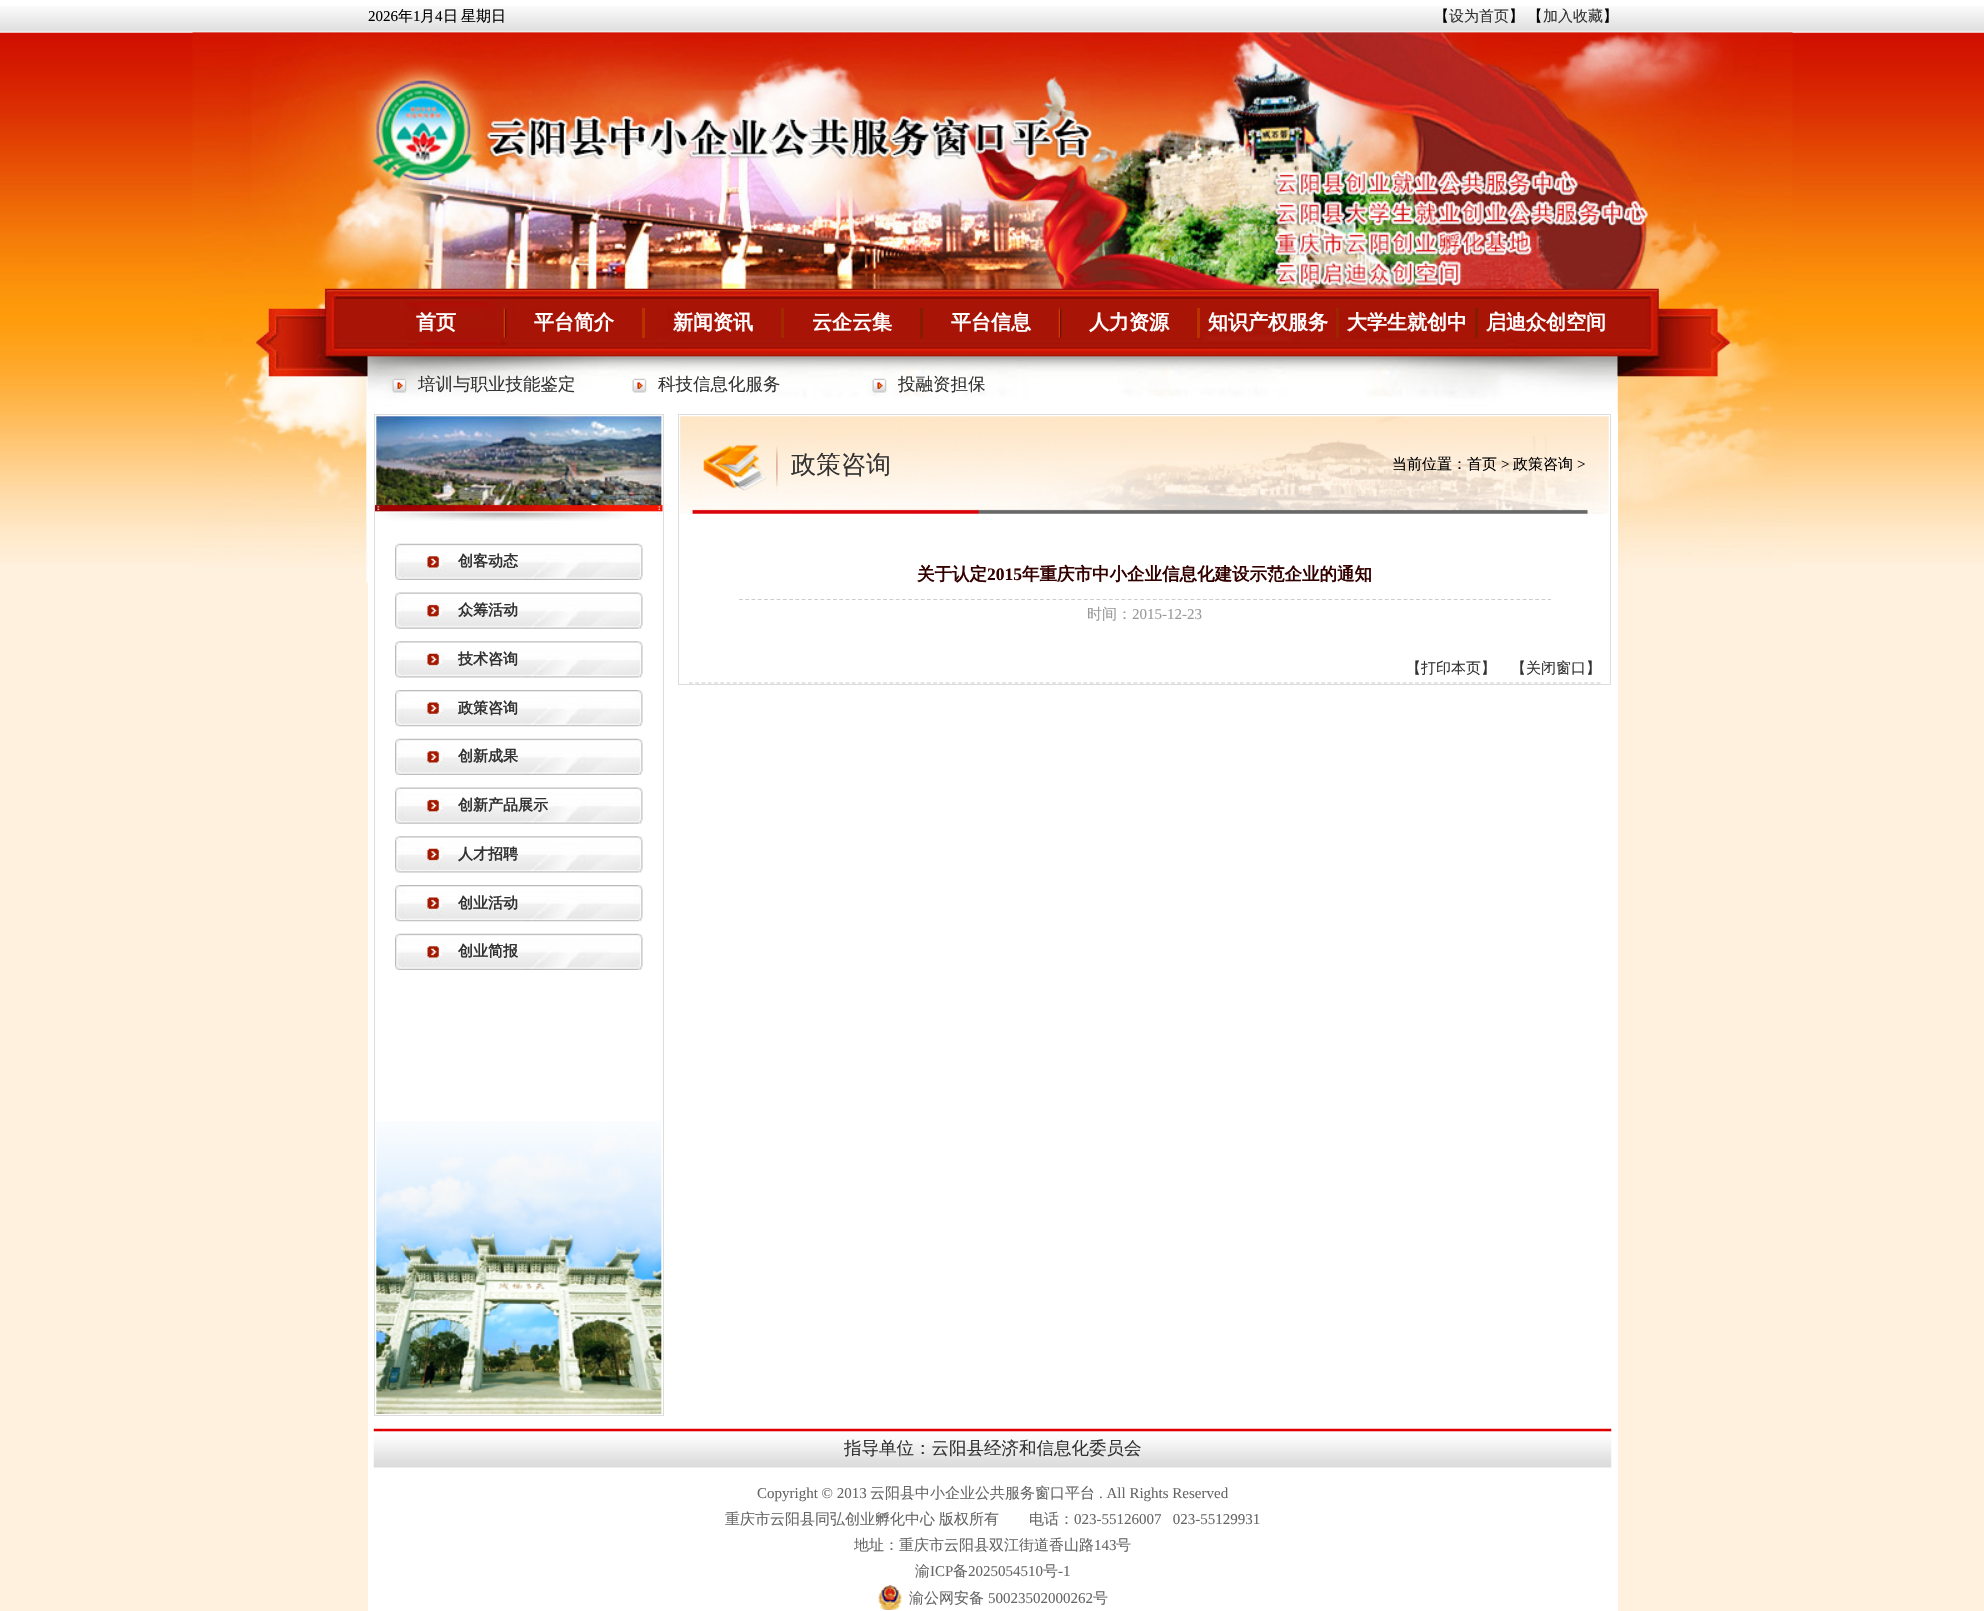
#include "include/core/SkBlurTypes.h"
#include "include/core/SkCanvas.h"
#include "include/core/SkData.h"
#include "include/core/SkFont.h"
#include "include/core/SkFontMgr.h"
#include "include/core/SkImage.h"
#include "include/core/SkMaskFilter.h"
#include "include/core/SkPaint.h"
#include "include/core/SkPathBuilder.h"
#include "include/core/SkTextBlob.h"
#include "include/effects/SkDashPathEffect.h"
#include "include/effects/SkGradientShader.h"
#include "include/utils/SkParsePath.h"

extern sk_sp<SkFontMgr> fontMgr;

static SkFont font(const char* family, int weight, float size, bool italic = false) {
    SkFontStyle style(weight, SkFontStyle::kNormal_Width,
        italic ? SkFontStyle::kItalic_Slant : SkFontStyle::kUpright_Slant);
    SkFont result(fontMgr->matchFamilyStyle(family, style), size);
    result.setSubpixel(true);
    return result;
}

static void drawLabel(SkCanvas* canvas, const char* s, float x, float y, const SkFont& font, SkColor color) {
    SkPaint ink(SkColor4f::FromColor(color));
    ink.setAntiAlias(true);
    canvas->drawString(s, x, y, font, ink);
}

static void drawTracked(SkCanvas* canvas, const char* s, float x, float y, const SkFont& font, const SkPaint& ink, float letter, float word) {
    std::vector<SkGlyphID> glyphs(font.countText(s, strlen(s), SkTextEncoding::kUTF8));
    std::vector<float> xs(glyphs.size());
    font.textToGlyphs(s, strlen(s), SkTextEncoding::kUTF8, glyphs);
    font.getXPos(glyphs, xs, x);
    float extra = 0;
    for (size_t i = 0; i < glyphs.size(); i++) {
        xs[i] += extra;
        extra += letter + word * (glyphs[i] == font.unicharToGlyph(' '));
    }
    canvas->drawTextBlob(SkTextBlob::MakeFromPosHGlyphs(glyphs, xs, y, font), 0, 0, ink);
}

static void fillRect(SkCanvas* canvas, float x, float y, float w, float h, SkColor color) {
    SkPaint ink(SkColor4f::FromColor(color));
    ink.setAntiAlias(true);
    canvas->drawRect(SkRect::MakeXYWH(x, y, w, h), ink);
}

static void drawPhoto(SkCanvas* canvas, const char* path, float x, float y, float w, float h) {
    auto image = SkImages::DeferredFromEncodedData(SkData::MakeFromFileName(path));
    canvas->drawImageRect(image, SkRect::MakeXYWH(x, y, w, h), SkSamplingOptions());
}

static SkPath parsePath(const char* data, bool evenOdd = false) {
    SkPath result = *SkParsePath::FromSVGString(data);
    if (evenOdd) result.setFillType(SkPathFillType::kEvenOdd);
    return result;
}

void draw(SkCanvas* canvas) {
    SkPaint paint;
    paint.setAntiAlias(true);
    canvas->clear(0xFFFFF1DE);
    drawPhoto(canvas, "assets/img1.png", 0, 0, 1984, 563);
    drawPhoto(canvas, "assets/img2.png", 0, 6, 1984, 27);
    SkFont font1 = font("Liberation Serif", 400, 15);
    drawLabel(canvas, "2026", 368, 21, font1, 0xFF000000);
    SkFont font2 = font("WenQuanYi Zen Hei", 500, 15);
    drawLabel(canvas, "年", 398, 21, font2, 0xFF000000);
    drawLabel(canvas, "1", 413, 21, font1, 0xFF000000);
    drawLabel(canvas, "月", 420, 21, font2, 0xFF000000);
    drawLabel(canvas, "4", 435, 21, font1, 0xFF000000);
    drawLabel(canvas, "日", 443, 21, font2, 0xFF000000);
    drawLabel(canvas, "星期日", 461, 21, font2, 0xFF000000);
    drawLabel(canvas, "【", 1434, 21, font2, 0xFF000000);
    drawLabel(canvas, "设为首页", 1449, 21, font2, 0xFF333333);
    paint.setColor(0xFF000000);
    drawTracked(canvas, "】 【", 1509, 21, font2, paint, 0, -1);
    drawLabel(canvas, "加入收藏", 1543, 21, font2, 0xFF333333);
    drawLabel(canvas, "】", 1603, 21, font2, 0xFF000000);
    drawPhoto(canvas, "assets/img3.png", 192, 32, 1601, 551);
    drawPhoto(canvas, "assets/img4.png", 255, 288, 1476, 126);
    SkFont font3 = font("WenQuanYi Zen Hei", 700, 20);
    drawLabel(canvas, "首页", 416, 329, font3, 0xFFFFFFFF);
    drawPhoto(canvas, "assets/img5.png", 503, 308, 4, 30);
    drawLabel(canvas, "平台简介", 534, 329, font3, 0xFFFFFFFF);
    fillRect(canvas, 642, 308, 3, 30, 0xFFB93200);
    drawLabel(canvas, "新闻资讯", 673, 329, font3, 0xFFFFFFFF);
    fillRect(canvas, 781, 308, 3, 30, 0xFFA22A00);
    drawLabel(canvas, "云企云集", 812, 329, font3, 0xFFFFFFFF);
    fillRect(canvas, 920, 308, 3, 30, 0xFF831F00);
    drawLabel(canvas, "平台信息", 951, 329, font3, 0xFFFFFFFF);
    drawPhoto(canvas, "assets/img6.png", 1058, 308, 4, 30);
    drawLabel(canvas, "人力资源", 1089, 329, font3, 0xFFFFFFFF);
    fillRect(canvas, 1197, 308, 3, 30, 0xFFB93200);
    drawLabel(canvas, "知识产权服务", 1208, 329, font3, 0xFFFFFFFF);
    fillRect(canvas, 1336, 308, 3, 30, 0xFF9A2700);
    drawLabel(canvas, "大学生就创中", 1347, 329, font3, 0xFFFFFFFF);
    fillRect(canvas, 1475, 308, 3, 30, 0xFF831F00);
    drawLabel(canvas, "启迪众创空间", 1486, 329, font3, 0xFFFFFFFF);
    drawPhoto(canvas, "assets/img7.png", 392, 378, 15, 15);
    SkFont font4 = font("WenQuanYi Zen Hei", 500, 17.5f);
    drawLabel(canvas, "培训与职业技能鉴定", 418, 390, font4, 0xFF333333);
    drawPhoto(canvas, "assets/img8.png", 632, 378, 15, 15);
    drawLabel(canvas, "科技信息化服务", 658, 390, font4, 0xFF333333);
    drawPhoto(canvas, "assets/img9.png", 872, 378, 15, 15);
    drawLabel(canvas, "投融资担保", 898, 390, font4, 0xFF333333);
    fillRect(canvas, 368, 414, 1250, 1197, 0xFFFFFFFF);
    drawPhoto(canvas, "assets/img10.png", 376, 1121, 286, 293);
    paint.setStroke(true);
    paint.setStrokeWidth(1);
    paint.setColor(0xFFDDDDDD);
    canvas->drawRect(SkRect::MakeXYWH(374.5f, 414.5f, 289, 1001), paint);
    drawPhoto(canvas, "assets/img11.png", 375, 415, 288, 106);
    drawPhoto(canvas, "assets/img12.png", 395, 543, 248, 37);
    SkFont font5 = font("WenQuanYi Zen Hei", 700, 15);
    drawLabel(canvas, "创客动态", 458, 566, font5, 0xFF333333);
    drawPhoto(canvas, "assets/img13.png", 395, 592, 248, 37);
    drawLabel(canvas, "众筹活动", 458, 615, font5, 0xFF333333);
    drawPhoto(canvas, "assets/img14.png", 395, 641, 248, 37);
    drawLabel(canvas, "技术咨询", 458, 664, font5, 0xFF333333);
    drawPhoto(canvas, "assets/img15.png", 395, 690, 248, 37);
    drawLabel(canvas, "政策咨询", 458, 713, font5, 0xFF333333);
    drawPhoto(canvas, "assets/img12.png", 395, 738, 248, 37);
    drawLabel(canvas, "创新成果", 458, 761, font5, 0xFF333333);
    drawPhoto(canvas, "assets/img13.png", 395, 787, 248, 37);
    drawLabel(canvas, "创新产品展示", 458, 810, font5, 0xFF333333);
    drawPhoto(canvas, "assets/img14.png", 395, 836, 248, 37);
    drawLabel(canvas, "人才招聘", 458, 859, font5, 0xFF333333);
    drawPhoto(canvas, "assets/img15.png", 395, 885, 248, 37);
    drawLabel(canvas, "创业活动", 458, 908, font5, 0xFF333333);
    drawPhoto(canvas, "assets/img12.png", 395, 933, 248, 37);
    drawLabel(canvas, "创业简报", 458, 956, font5, 0xFF333333);
    drawPhoto(canvas, "assets/img16.png", 680, 416, 929, 98);
    canvas->drawRect(SkRect::MakeXYWH(678.5f, 414.5f, 932, 270), paint);
    drawPhoto(canvas, "assets/img17.png", 703, 444, 75, 47);
    SkFont font6 = font("WenQuanYi Zen Hei", 500, 25);
    drawLabel(canvas, "政策咨询", 791, 473, font6, 0xFF333333);
    drawLabel(canvas, "当前位置：首页", 1392, 469, font2, 0xFF000000);
    drawLabel(canvas, ">", 1501, 469, font1, 0xFF000000);
    drawLabel(canvas, "政策咨询", 1513, 469, font2, 0xFF000000);
    drawLabel(canvas, ">", 1577, 469, font1, 0xFF000000);
    SkFont font7 = font("WenQuanYi Zen Hei", 700, 17.5f);
    drawLabel(canvas, "关于认定", 917, 580, font7, 0xFF330000);
    SkFont font8 = font("Liberation Serif", 700, 17.5f);
    drawLabel(canvas, "2015", 987, 580, font8, 0xFF330000);
    drawLabel(canvas, "年重庆市中小企业信息化建设示范企业的通知", 1022, 580, font7, 0xFF330000);
    paint.setStrokeWidth(1.2f);
    paint.setColor(0xFFCCCCCC);
    paint.setPathEffect(SkDashPathEffect::Make({{3.75f, 2.52f}}, 0));
    canvas->drawPath(parsePath("M739 599.5H1551"), paint);
    paint.setPathEffect(nullptr);
    drawLabel(canvas, "时间：", 1087, 619, font2, 0xFF999999);
    drawLabel(canvas, "2015-12-23", 1132, 619, font1, 0xFF999999);
    paint.setPathEffect(SkDashPathEffect::Make({{3.75f, 2.51f}}, 0));
    canvas->drawPath(parsePath("M689 683H1601"), paint);
    paint.setPathEffect(nullptr);
    drawLabel(canvas, "【打印本页】　【关闭窗口】", 1406, 673, font2, 0xFF333333);
    drawPhoto(canvas, "assets/img18.png", 373, 1428, 1239, 40);
    drawLabel(canvas, "指导单位：云阳县经济和信息化委员会", 844, 1454, font4, 0xFF333333);
    drawLabel(canvas, "Copyright © 2013", 757, 1498, font1, 0xFF666666);
    drawLabel(canvas, "云阳县中小企业公共服务窗口平台", 870, 1498, font2, 0xFF666666);
    drawLabel(canvas, ". All Rights Reserved", 1099, 1498, font1, 0xFF666666);
    drawLabel(canvas, "重庆市云阳县同弘创业孵化中心", 725, 1524, font2, 0xFF666666);
    drawLabel(canvas, "版权所有　　电话：", 939, 1524, font2, 0xFF666666);
    drawLabel(canvas, "023-55126007   023-55129931", 1074, 1524, font1, 0xFF666666);
    drawLabel(canvas, "地址：重庆市云阳县双江街道香山路", 854, 1550, font2, 0xFF666666);
    drawLabel(canvas, "143", 1094, 1550, font1, 0xFF666666);
    drawLabel(canvas, "号", 1116, 1550, font2, 0xFF666666);
    drawLabel(canvas, "渝", 915, 1576, font2, 0xFF666666);
    drawLabel(canvas, "ICP", 930, 1576, font1, 0xFF666666);
    drawLabel(canvas, "备", 953, 1576, font2, 0xFF666666);
    drawLabel(canvas, "2025054510", 968, 1576, font1, 0xFF666666);
    drawLabel(canvas, "号", 1043, 1576, font2, 0xFF666666);
    drawLabel(canvas, "-1", 1058, 1576, font1, 0xFF666666);
    drawPhoto(canvas, "assets/img19.png", 878, 1585, 24, 25);
    drawLabel(canvas, "渝公网安备", 909, 1603, font2, 0xFF666666);
    drawLabel(canvas, "50023502000262", 988, 1603, font1, 0xFF666666);
    drawLabel(canvas, "号", 1093, 1603, font2, 0xFF666666);
}
